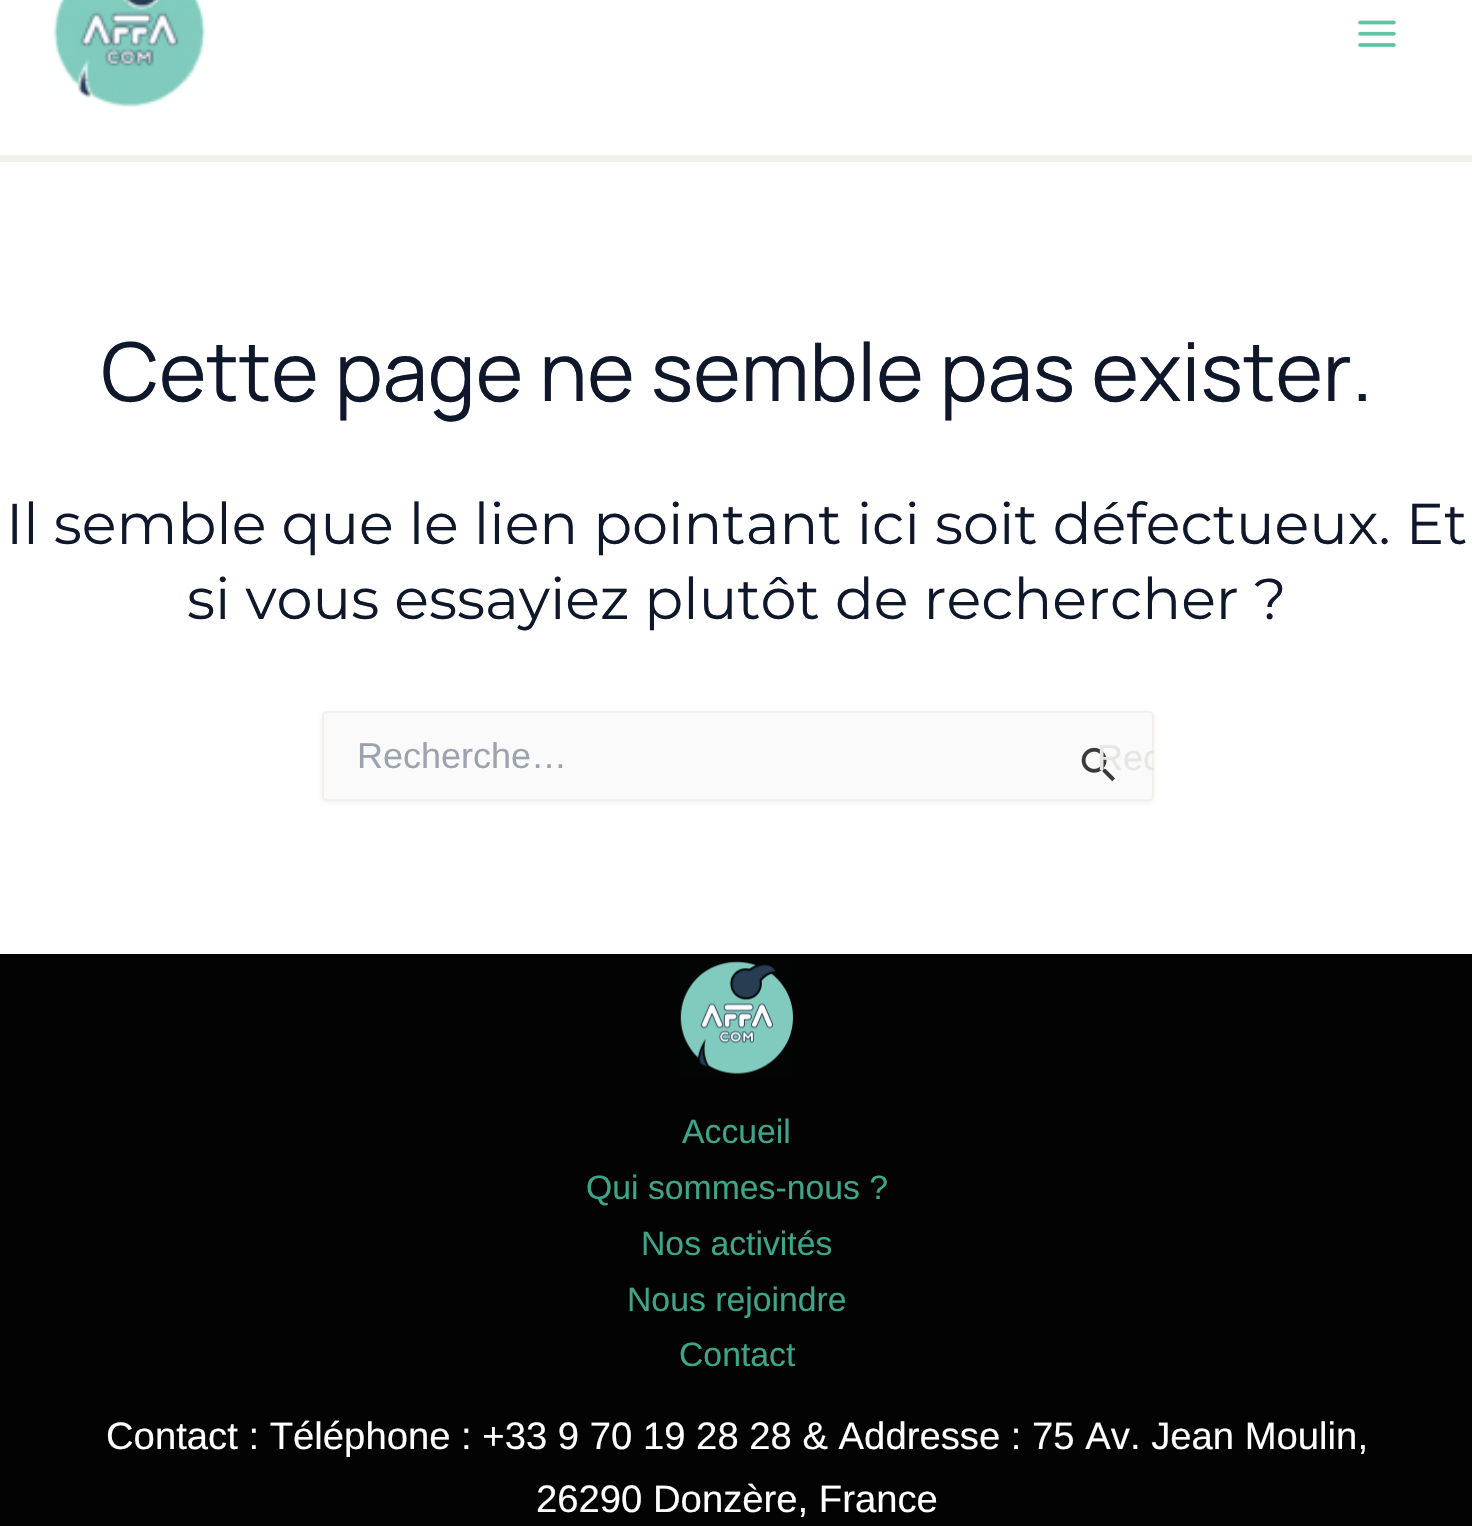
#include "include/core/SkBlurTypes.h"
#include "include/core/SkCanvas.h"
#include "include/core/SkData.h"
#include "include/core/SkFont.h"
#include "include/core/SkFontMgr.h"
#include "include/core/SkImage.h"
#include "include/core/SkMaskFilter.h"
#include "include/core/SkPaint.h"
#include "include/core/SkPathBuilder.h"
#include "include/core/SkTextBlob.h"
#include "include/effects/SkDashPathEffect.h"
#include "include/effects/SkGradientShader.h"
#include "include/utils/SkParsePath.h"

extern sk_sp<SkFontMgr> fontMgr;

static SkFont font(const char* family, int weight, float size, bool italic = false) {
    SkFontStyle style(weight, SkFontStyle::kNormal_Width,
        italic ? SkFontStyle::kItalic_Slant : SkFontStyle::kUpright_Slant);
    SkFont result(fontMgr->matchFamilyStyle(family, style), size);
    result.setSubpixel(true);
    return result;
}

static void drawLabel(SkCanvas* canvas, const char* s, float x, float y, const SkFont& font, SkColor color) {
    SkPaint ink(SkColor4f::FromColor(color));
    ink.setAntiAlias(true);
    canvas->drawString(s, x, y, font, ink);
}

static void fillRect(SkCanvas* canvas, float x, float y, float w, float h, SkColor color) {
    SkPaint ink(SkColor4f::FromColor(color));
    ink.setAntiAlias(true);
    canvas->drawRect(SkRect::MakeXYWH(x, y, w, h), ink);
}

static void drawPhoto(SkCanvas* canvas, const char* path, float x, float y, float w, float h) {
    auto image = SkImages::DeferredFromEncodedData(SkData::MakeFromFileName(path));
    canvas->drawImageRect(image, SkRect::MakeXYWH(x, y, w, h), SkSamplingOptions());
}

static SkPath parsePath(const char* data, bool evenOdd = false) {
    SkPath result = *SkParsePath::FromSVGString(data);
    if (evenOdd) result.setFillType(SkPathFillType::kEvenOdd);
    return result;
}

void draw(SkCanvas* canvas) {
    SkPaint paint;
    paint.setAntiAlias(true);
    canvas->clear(0xFFFFFFFF);
    fillRect(canvas, 0, 155, 1472, 7, 0xFFF3F0EB);
    drawPhoto(canvas, "assets/img1.png", 53, 0, 153, 107);
    drawPhoto(canvas, "assets/img2.png", 1358, 20, 38, 27);
    SkFont font1 = font("Manrope", 400, 81);
    drawLabel(canvas, "Cette page ne semble pas exister.", 101, 401, font1, 0xFF0F172A);
    SkFont font2 = font("Montserrat", 400, 57.4f);
    drawLabel(canvas, "Il semble que le lien pointant ici soit défectueux. Et", 6, 544, font2, 0xFF0F172A);
    drawLabel(canvas, "si vous essayiez plutôt de rechercher ?", 187, 619, font2, 0xFF0F172A);
    paint.setColor(0x0D000000);
    paint.setMaskFilter(SkMaskFilter::MakeBlur(kNormal_SkBlurStyle, 2));
    canvas->drawRoundRect(SkRect::MakeXYWH(322, 713, 832, 90), 5, 5, paint);
    paint.setMaskFilter(nullptr);
    paint.setColor(0xFFFAFAFA);
    canvas->drawRoundRect(SkRect::MakeXYWH(323, 712, 830, 88), 4, 4, paint);
    paint.setStroke(true);
    paint.setStrokeWidth(2);
    paint.setColor(0xFFF3F0EB);
    canvas->drawRoundRect(SkRect::MakeXYWH(323, 712, 830, 88), 4, 4, paint);
    SkFont font3 = font("Liberation Sans", 400, 36);
    drawLabel(canvas, "Recherche…", 357, 768, font3, 0xFF9CA3AF);
    drawPhoto(canvas, "assets/img3.png", 1081, 747, 34, 35);
    canvas->save();
    canvas->clipPath(parsePath("M1058 711H1149C1152 711 1154 713 1154 716V801C1154 804 1152 806 1149 806H1058C1055 806 1053 804 1053 801V716C1053 713 1055 711 1058 711Z"), true);
    drawLabel(canvas, "Rec", 1097, 770, font3, 0xFFE6E6E5);
    canvas->restore();
    fillRect(canvas, 0, 954, 1472, 572, 0xFF030303);
    drawPhoto(canvas, "assets/img4.png", 680, 961, 113, 113);
    SkFont font4 = font("Liberation Sans", 400, 33.75f);
    drawLabel(canvas, "Accueil", 682, 1143, font4, 0xFF3EA58A);
    drawLabel(canvas, "Qui sommes-nous ?", 586, 1199, font4, 0xFF3EA58A);
    drawLabel(canvas, "Nos activités", 641, 1255, font4, 0xFF3EA58A);
    drawLabel(canvas, "Nous rejoindre", 627, 1311, font4, 0xFF3EA58A);
    drawLabel(canvas, "Contact", 679, 1366, font4, 0xFF3EA58A);
    SkFont font5 = font("Liberation Sans", 400, 38.25f);
    drawLabel(canvas, "Contact : Téléphone : +33 9 70 19 28 28 & Addresse : 75 Av. Jean Moulin,", 106, 1449, font5, 0xFFFFFFFF);
    drawLabel(canvas, "26290 Donzère, France", 536, 1512, font5, 0xFFFFFFFF);
}
